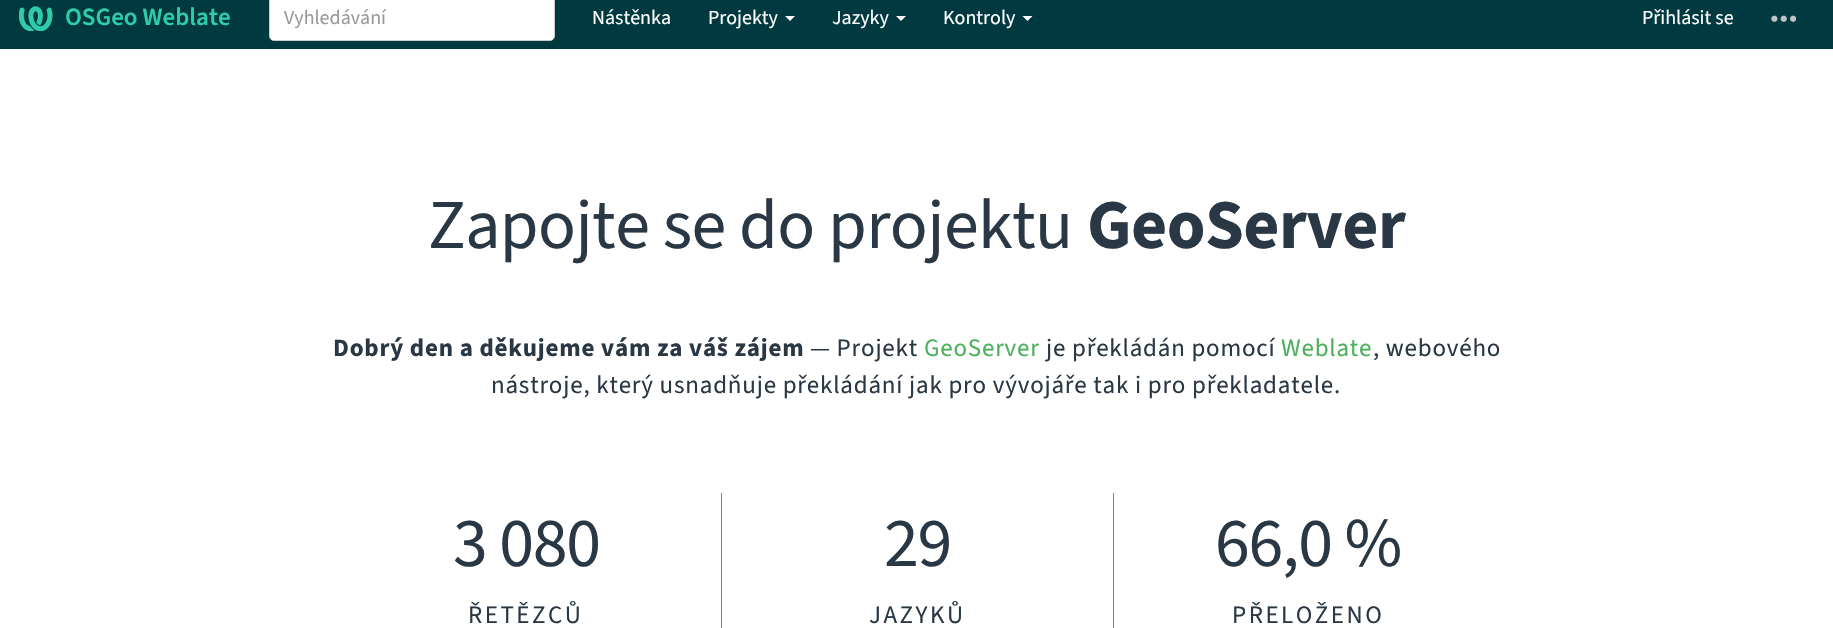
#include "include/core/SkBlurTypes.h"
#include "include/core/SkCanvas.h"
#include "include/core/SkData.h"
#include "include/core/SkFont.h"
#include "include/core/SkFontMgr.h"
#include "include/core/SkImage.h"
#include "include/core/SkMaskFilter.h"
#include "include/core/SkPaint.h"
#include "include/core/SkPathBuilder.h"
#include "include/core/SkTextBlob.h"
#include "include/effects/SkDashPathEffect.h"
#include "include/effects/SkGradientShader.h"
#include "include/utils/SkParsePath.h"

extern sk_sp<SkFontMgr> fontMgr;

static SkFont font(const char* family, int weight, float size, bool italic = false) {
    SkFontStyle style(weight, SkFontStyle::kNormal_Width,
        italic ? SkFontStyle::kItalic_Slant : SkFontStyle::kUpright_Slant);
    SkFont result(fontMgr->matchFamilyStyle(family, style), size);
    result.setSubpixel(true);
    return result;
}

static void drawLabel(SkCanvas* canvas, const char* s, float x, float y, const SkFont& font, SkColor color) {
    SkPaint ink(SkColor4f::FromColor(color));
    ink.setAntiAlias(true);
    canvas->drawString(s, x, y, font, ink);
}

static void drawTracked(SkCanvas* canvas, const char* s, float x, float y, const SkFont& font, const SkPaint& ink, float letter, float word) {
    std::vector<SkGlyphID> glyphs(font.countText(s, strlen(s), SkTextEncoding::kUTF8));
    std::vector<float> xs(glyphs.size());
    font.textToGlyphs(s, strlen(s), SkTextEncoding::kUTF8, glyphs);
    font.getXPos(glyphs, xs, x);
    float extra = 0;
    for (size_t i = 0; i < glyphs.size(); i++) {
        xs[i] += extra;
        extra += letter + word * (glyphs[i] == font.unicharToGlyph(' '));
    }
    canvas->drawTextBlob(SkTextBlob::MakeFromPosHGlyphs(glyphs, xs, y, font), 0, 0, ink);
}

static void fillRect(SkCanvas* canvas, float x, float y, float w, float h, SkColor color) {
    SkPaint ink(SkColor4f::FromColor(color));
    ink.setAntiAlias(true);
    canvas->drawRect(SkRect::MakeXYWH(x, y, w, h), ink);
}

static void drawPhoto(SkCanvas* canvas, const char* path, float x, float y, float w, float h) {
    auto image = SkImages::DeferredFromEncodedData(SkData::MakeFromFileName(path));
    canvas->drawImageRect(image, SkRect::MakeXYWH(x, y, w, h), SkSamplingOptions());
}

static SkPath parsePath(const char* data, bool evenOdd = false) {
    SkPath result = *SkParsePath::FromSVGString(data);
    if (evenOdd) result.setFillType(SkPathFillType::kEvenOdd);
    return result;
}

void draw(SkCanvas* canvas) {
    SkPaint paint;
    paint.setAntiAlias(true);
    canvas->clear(0xFFFFFFFF);
    fillRect(canvas, 0, 0, 1833, 49, 0xFF003A40);
    drawPhoto(canvas, "assets/img1.png", 19, 6, 34, 25);
    SkFont font1 = font("Source Sans 3", 600, 25);
    drawLabel(canvas, "OSGeo Weblate", 65, 25, font1, 0xFF2ECCAA);
    paint.setColor(0xFFFFFFFF);
    canvas->drawRoundRect(SkRect::MakeXYWH(269.5f, -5.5f, 285, 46), 4.5f, 4.5f, paint);
    paint.setStroke(true);
    paint.setStrokeWidth(1);
    paint.setColor(0xFFCCCCCC);
    canvas->drawRoundRect(SkRect::MakeXYWH(269.5f, -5.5f, 285, 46), 4.5f, 4.5f, paint);
    SkFont font2 = font("Source Sans 3", 400, 20);
    drawLabel(canvas, "Vyhledávání", 284, 24, font2, 0xFF999999);
    drawLabel(canvas, "Nástěnka", 592, 24, font2, 0xFFFFFFFF);
    drawLabel(canvas, "Projekty", 708, 24, font2, 0xFFFFFFFF);
    paint.setStroke(false);
    paint.setColor(0xFFFFFFFF);
    canvas->drawPath(parsePath("M785 16H795L790 21Z"), paint);
    drawLabel(canvas, "Jazyky", 832, 24, font2, 0xFFFFFFFF);
    canvas->drawPath(parsePath("M896 16H906L901 21Z"), paint);
    drawLabel(canvas, "Kontroly", 943, 24, font2, 0xFFFFFFFF);
    canvas->drawPath(parsePath("M1022.5 16H1032.5L1027.5 21Z"), paint);
    drawLabel(canvas, "Přihlásit se", 1642, 24, font2, 0xFFFFFFFF);
    drawPhoto(canvas, "assets/img2.png", 1771, 15, 25, 7);
    SkFont font3 = font("Source Sans 3", 400, 70);
    paint.setColor(0xFF2A3744);
    drawTracked(canvas, "Zapojte se do projektu", 428, 248, font3, paint, -0.6f, 0);
    SkFont font4 = font("Source Sans 3", 700, 70);
    drawTracked(canvas, "GeoServer", 1087, 248, font4, paint, -0.6f, 0);
    SkFont font5 = font("Source Sans 3", 700, 25);
    drawTracked(canvas, "Dobrý den a děkujeme vám za váš zájem", 333, 356, font5, paint, 0.8f, 0);
    SkFont font6 = font("Source Sans 3", 400, 25);
    drawTracked(canvas, "— Projekt", 810, 356, font6, paint, 0.8f, 0);
    paint.setColor(0xFF4CB05C);
    drawTracked(canvas, "GeoServer", 924, 356, font6, paint, 0.8f, 0);
    paint.setColor(0xFF2A3744);
    drawTracked(canvas, "je překládán pomocí", 1046, 356, font6, paint, 0.8f, 0);
    paint.setColor(0xFF4CB05C);
    drawTracked(canvas, "Weblate", 1281, 356, font6, paint, 0.8f, 0);
    paint.setColor(0xFF2A3744);
    drawTracked(canvas, ", webového", 1373, 356, font6, paint, 0.8f, 0);
    drawTracked(canvas, "nástroje, který usnadňuje překládání jak pro vývojáře tak i pro překladatele.", 491, 393, font6, paint, 0.8f, 0);
    drawTracked(canvas, "3 080", 453, 566, font3, paint, -1.25f, 0);
    drawTracked(canvas, "ŘETĚZCŮ", 468, 623, font6, paint, 2.5f, 0);
    fillRect(canvas, 721, 493, 1, 135, 0xFF808080);
    drawTracked(canvas, "29", 884, 566, font3, paint, -1.25f, 0);
    drawTracked(canvas, "JAZYKŮ", 869, 623, font6, paint, 2.5f, 0);
    fillRect(canvas, 1113, 493, 1, 135, 0xFF808080);
    drawTracked(canvas, "66,0 %", 1215, 566, font3, paint, -1.25f, 0);
    drawTracked(canvas, "PŘELOŽENO", 1232, 623, font6, paint, 2.5f, 0);
}
